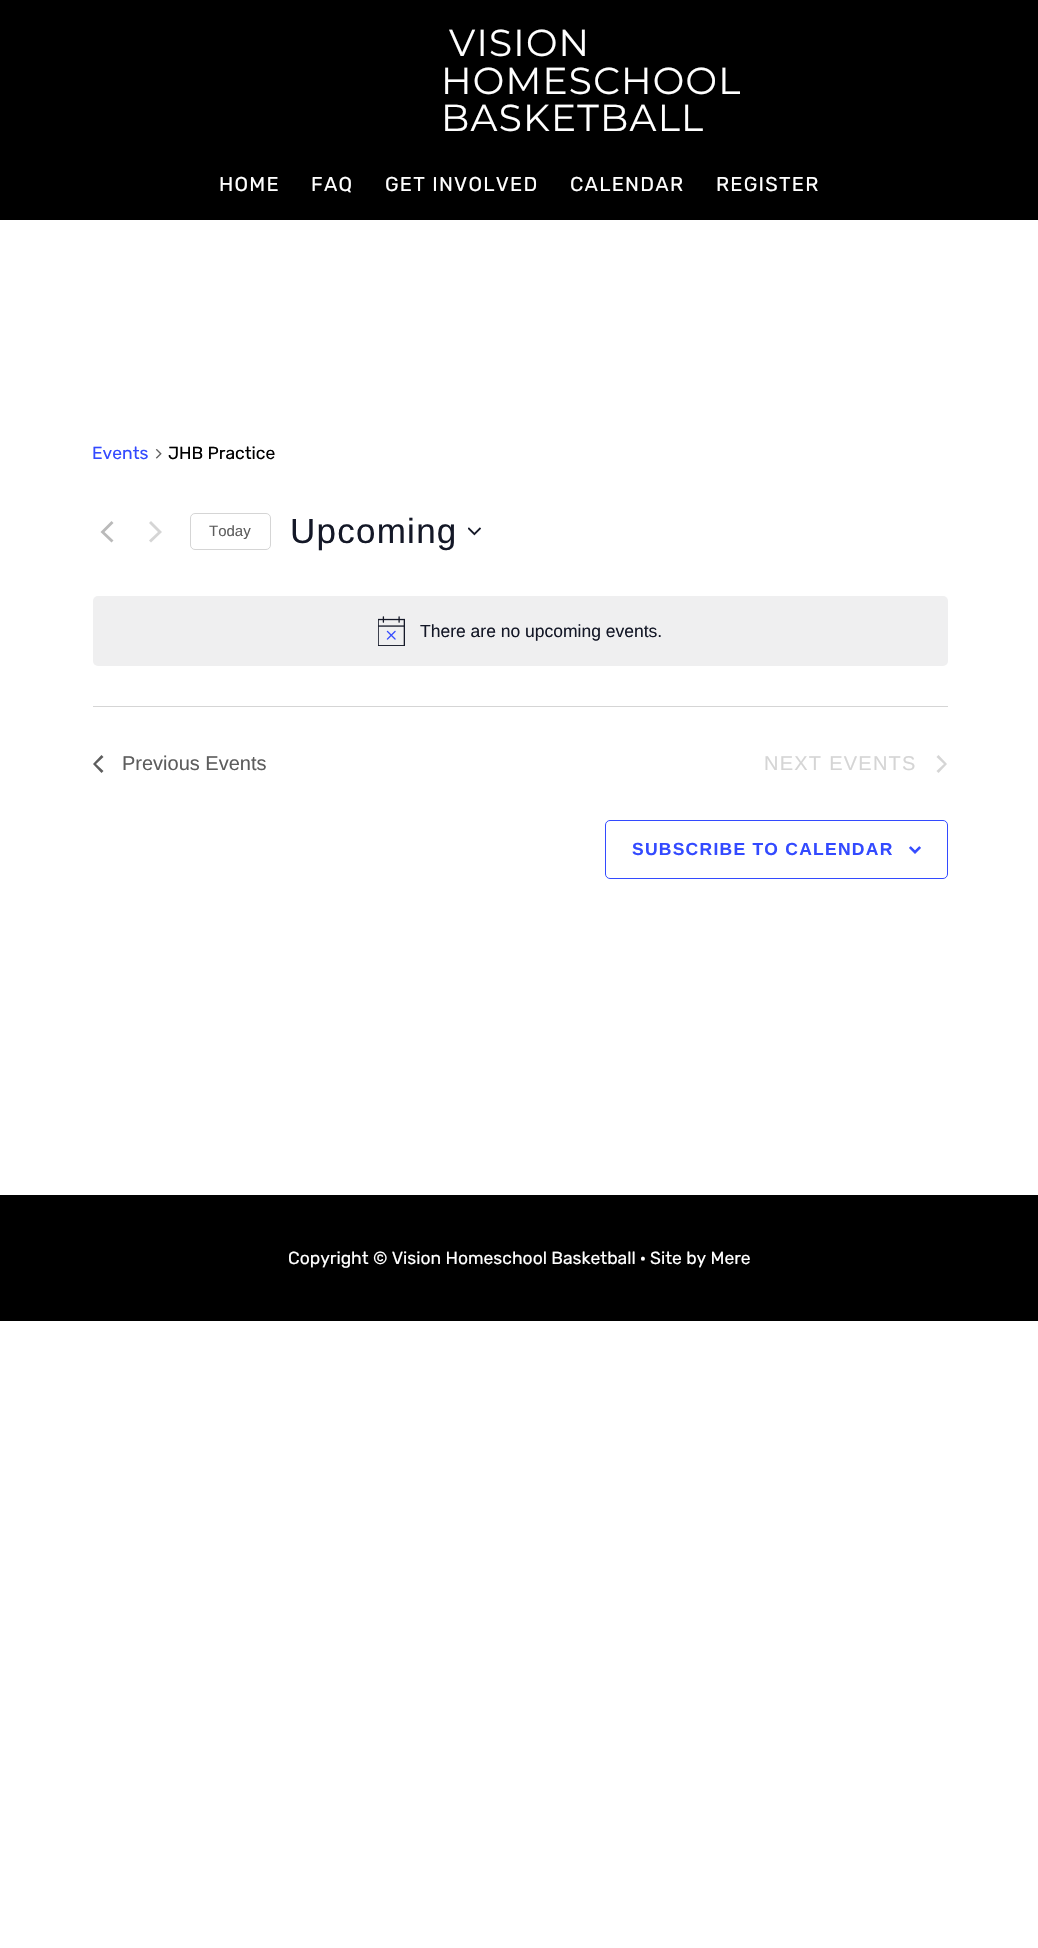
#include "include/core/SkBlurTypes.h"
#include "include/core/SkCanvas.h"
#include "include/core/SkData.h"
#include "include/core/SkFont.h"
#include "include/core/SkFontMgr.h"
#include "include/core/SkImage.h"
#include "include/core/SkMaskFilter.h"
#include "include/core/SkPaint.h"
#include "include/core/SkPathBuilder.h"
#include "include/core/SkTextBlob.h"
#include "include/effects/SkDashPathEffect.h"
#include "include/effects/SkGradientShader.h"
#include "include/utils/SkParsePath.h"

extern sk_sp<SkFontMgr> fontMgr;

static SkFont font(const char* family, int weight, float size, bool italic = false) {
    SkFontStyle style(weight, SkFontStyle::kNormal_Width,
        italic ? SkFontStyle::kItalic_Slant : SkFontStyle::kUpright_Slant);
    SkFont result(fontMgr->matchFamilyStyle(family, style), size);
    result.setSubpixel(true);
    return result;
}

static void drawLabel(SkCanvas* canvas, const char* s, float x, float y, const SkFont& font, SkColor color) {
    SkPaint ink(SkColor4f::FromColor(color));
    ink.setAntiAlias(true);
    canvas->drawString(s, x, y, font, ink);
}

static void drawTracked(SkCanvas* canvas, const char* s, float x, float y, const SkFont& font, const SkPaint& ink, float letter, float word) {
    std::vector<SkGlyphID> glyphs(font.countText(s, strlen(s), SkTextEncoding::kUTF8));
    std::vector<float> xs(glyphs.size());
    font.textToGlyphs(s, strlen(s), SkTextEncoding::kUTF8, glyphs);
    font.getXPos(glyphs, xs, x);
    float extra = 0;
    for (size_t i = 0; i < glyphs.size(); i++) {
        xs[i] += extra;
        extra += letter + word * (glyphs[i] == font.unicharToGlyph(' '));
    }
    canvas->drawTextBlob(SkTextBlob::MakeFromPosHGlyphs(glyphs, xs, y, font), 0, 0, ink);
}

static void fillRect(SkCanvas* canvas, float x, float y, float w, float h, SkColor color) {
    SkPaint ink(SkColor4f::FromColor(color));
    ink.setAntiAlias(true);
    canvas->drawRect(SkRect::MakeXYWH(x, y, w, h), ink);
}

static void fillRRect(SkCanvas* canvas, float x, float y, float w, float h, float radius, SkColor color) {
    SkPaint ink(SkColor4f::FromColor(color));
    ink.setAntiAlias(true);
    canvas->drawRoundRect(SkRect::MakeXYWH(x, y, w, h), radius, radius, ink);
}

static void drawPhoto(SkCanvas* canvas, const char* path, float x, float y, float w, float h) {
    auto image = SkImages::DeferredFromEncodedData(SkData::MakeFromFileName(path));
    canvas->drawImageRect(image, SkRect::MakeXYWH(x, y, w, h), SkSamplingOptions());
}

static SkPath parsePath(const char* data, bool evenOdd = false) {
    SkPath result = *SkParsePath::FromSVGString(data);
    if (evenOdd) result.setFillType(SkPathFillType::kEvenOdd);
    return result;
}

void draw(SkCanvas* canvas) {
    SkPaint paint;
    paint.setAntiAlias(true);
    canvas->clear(0xFFFFFFFF);
    fillRect(canvas, 0, 0, 1038, 220, 0xFF000000);
    SkFont font1 = font("Montserrat", 100, 37.5f);
    paint.setColor(0xFFFFFFFF);
    drawTracked(canvas, "VISION", 449, 56, font1, paint, 1.25f, 0);
    drawTracked(canvas, "HOMESCHOOL", 441, 94, font1, paint, 1.25f, 0);
    drawTracked(canvas, "BASKETBALL", 441, 131, font1, paint, 1.25f, 0);
    SkFont font2 = font("Rubik", 400, 20);
    drawTracked(canvas, "HOME", 219, 191, font2, paint, 1.25f, 0);
    drawTracked(canvas, "FAQ", 311, 191, font2, paint, 1.25f, 0);
    drawTracked(canvas, "GET INVOLVED", 385, 191, font2, paint, 1.25f, 0);
    drawTracked(canvas, "CALENDAR", 570, 191, font2, paint, 1.25f, 0);
    drawTracked(canvas, "REGISTER", 716, 191, font2, paint, 1.25f, 0);
    SkFont font3 = font("Rubik", 400, 17.5f);
    drawLabel(canvas, "Events", 92, 459, font3, 0xFF334AFF);
    drawPhoto(canvas, "assets/img1.png", 155, 449, 7, 10);
    drawLabel(canvas, "JHB Practice", 168, 459, font3, 0xFF000000);
    paint.setColor(0xFFBABABA);
    canvas->drawPath(parsePath("M113.5 540.5L111.5 542.5L100.5 532L111.5 521L113.5 523L104.5 532Z"), paint);
    paint.setColor(0xFFD5D5D5);
    canvas->drawPath(parsePath("M149 523L151 521L162 532L151 542.5L149 540.5L158 532Z"), paint);
    paint.setStroke(true);
    paint.setStrokeWidth(1);
    canvas->drawRoundRect(SkRect::MakeXYWH(190.5f, 513.5f, 80, 36), 4.5f, 4.5f, paint);
    SkFont font4 = font("Liberation Sans", 400, 15);
    drawLabel(canvas, "Today", 209, 536, font4, 0xFF5D5D5D);
    SkFont font5 = font("Liberation Sans", 400, 35);
    paint.setStroke(false);
    paint.setColor(0xFF141827);
    drawTracked(canvas, "Upcoming", 290, 543, font5, paint, 1.25f, 0);
    drawPhoto(canvas, "assets/img2.png", 468, 527, 13, 9);
    fillRRect(canvas, 93, 596, 855, 70, 5, 0xFFEFEFF0);
    drawPhoto(canvas, "assets/img3.png", 378, 616, 27, 30);
    SkFont font6 = font("Liberation Sans", 400, 17.5f);
    drawLabel(canvas, "There are no upcoming events.", 420, 637, font6, 0xFF141827);
    fillRect(canvas, 93, 706, 855, 1, 0xFFD5D5D5);
    paint.setColor(0xFF5D5D5D);
    canvas->drawPath(parsePath("M103.5 771L101.5 773L93 764L101.5 755L103.5 757L96 764Z"), paint);
    SkFont font7 = font("Liberation Sans", 400, 20);
    drawLabel(canvas, "Previous Events", 122, 770, font7, 0xFF5D5D5D);
    paint.setColor(0xFFD5D5D5);
    drawTracked(canvas, "NEXT EVENTS", 764, 770, font7, paint, 1.25f, 0);
    canvas->drawPath(parsePath("M936.5 757L938.5 755L947 764L938.5 773L936.5 771L944 764Z"), paint);
    paint.setStroke(true);
    paint.setColor(0xFF334AFF);
    canvas->drawRoundRect(SkRect::MakeXYWH(605.5f, 820.5f, 342, 58), 4.5f, 4.5f, paint);
    SkFont font8 = font("Liberation Sans", 700, 17.5f);
    paint.setStroke(false);
    drawTracked(canvas, "SUBSCRIBE TO CALENDAR", 632, 855, font8, paint, 1.25f, 0);
    drawPhoto(canvas, "assets/img4.png", 909, 846, 12, 8);
    fillRect(canvas, 0, 1195, 1038, 126, 0xFF000000);
    drawLabel(canvas, "Copyright © Vision Homeschool Basketball · Site by Mere", 288, 1264, font3, 0xFFFFFFFF);
}
